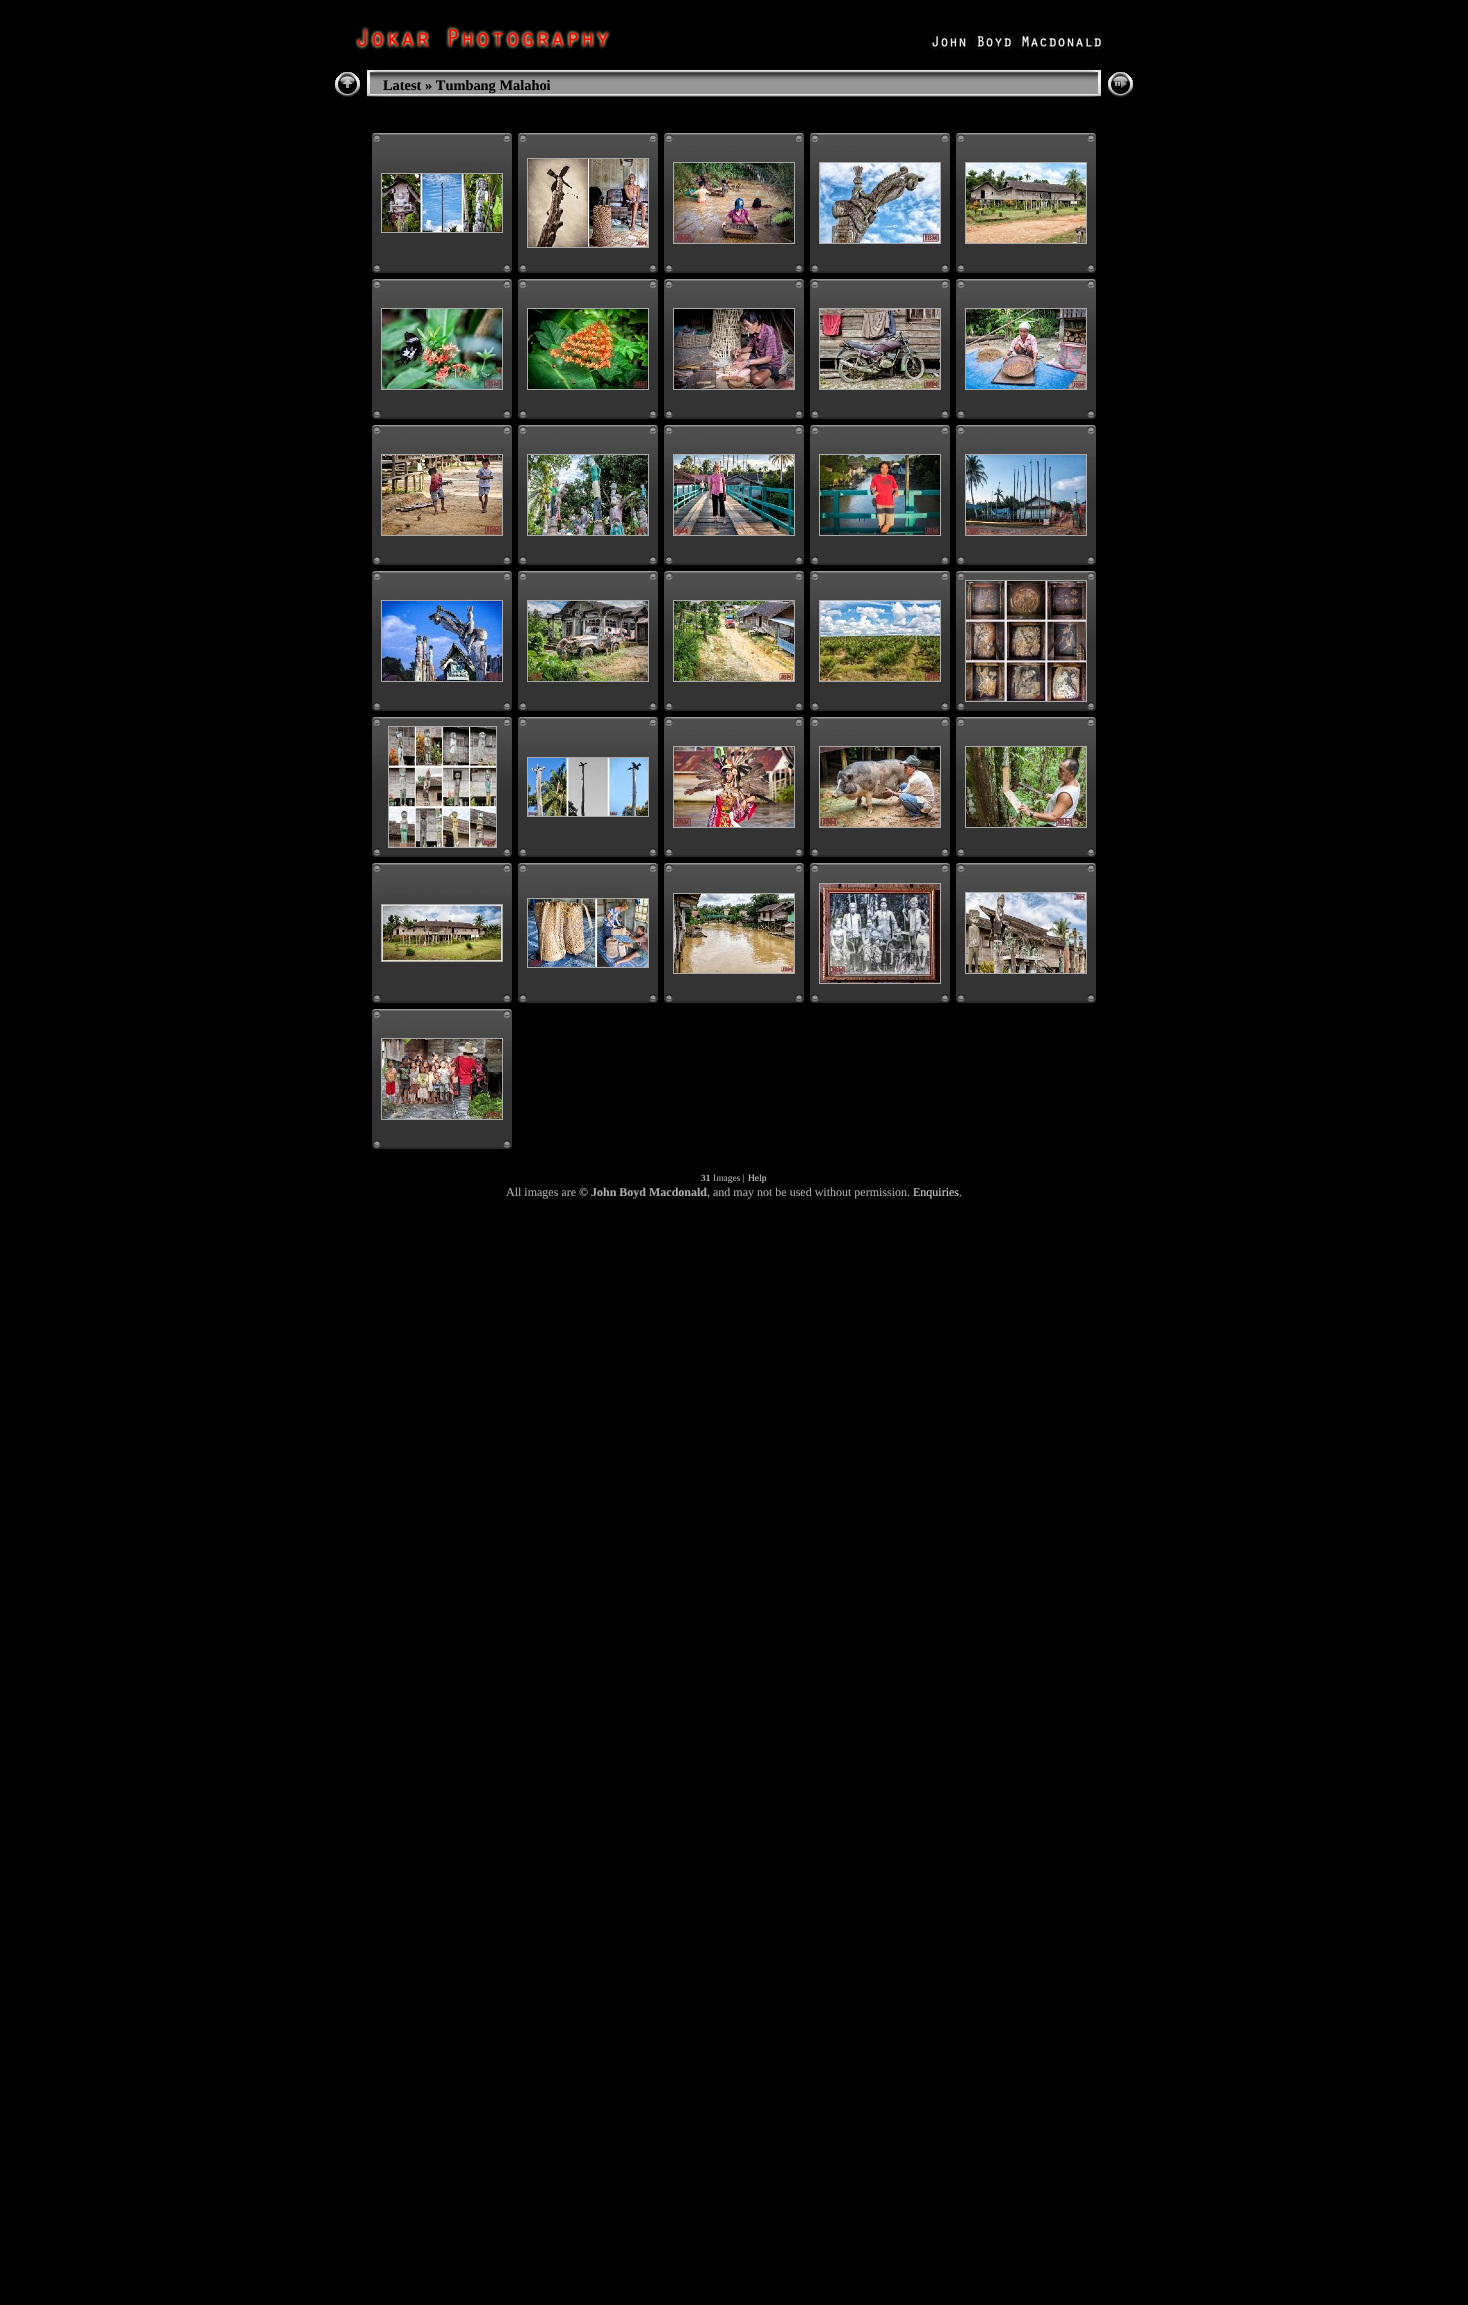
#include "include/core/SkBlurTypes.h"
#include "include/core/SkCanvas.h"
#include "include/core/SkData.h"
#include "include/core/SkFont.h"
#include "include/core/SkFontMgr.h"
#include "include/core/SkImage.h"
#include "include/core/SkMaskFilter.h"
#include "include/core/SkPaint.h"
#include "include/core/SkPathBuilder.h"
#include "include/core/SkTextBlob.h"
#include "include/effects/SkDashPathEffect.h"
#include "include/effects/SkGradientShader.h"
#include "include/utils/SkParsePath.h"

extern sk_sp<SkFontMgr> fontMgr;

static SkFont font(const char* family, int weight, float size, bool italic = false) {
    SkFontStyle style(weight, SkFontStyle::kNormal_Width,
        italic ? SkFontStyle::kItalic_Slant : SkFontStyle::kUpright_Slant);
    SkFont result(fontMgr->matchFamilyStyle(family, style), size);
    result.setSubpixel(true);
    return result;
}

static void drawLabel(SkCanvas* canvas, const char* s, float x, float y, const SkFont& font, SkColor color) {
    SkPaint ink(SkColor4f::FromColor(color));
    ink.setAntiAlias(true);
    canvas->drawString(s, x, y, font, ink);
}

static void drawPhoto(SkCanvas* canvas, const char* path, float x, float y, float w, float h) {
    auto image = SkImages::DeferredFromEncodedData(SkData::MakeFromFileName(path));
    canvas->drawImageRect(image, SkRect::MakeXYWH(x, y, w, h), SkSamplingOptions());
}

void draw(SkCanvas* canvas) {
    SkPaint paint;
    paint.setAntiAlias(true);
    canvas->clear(0xFF000000);
    drawPhoto(canvas, "assets/img1.png", 355, 26, 749, 24);
    drawPhoto(canvas, "assets/img2.png", 335, 72, 25, 25);
    drawPhoto(canvas, "assets/img3.png", 367, 70, 16, 27);
    drawPhoto(canvas, "assets/img4.png", 383, 70, 702, 27);
    SkFont font1 = font("Liberation Serif", 700, 14.4f);
    drawLabel(canvas, "Latest » Tumbang Malahoi", 383, 90, font1, 0xFF000000);
    drawPhoto(canvas, "assets/img5.png", 1085, 70, 16, 27);
    drawPhoto(canvas, "assets/img6.png", 1108, 72, 25, 25);
    drawPhoto(canvas, "assets/img7.png", 372, 133, 140, 140);
    paint.setStroke(true);
    paint.setStrokeWidth(1);
    paint.setColor(0xFFAAAAAA);
    canvas->drawRect(SkRect::MakeXYWH(381.5f, 173.5f, 121, 59), paint);
    drawPhoto(canvas, "assets/img8.png", 382, 174, 120, 58);
    drawPhoto(canvas, "assets/img7.png", 518, 133, 140, 140);
    canvas->drawRect(SkRect::MakeXYWH(527.5f, 158.5f, 121, 89), paint);
    drawPhoto(canvas, "assets/img9.png", 528, 159, 120, 88);
    drawPhoto(canvas, "assets/img7.png", 664, 133, 140, 140);
    canvas->drawRect(SkRect::MakeXYWH(673.5f, 162.5f, 121, 81), paint);
    drawPhoto(canvas, "assets/img10.png", 674, 163, 120, 80);
    drawPhoto(canvas, "assets/img7.png", 810, 133, 140, 140);
    canvas->drawRect(SkRect::MakeXYWH(819.5f, 162.5f, 121, 81), paint);
    drawPhoto(canvas, "assets/img11.png", 820, 163, 120, 80);
    drawPhoto(canvas, "assets/img7.png", 956, 133, 140, 140);
    canvas->drawRect(SkRect::MakeXYWH(965.5f, 162.5f, 121, 81), paint);
    drawPhoto(canvas, "assets/img12.png", 966, 163, 120, 80);
    drawPhoto(canvas, "assets/img7.png", 372, 279, 140, 140);
    canvas->drawRect(SkRect::MakeXYWH(381.5f, 308.5f, 121, 81), paint);
    drawPhoto(canvas, "assets/img13.png", 382, 309, 120, 80);
    drawPhoto(canvas, "assets/img7.png", 518, 279, 140, 140);
    canvas->drawRect(SkRect::MakeXYWH(527.5f, 308.5f, 121, 81), paint);
    drawPhoto(canvas, "assets/img14.png", 528, 309, 120, 80);
    drawPhoto(canvas, "assets/img7.png", 664, 279, 140, 140);
    canvas->drawRect(SkRect::MakeXYWH(673.5f, 308.5f, 121, 81), paint);
    drawPhoto(canvas, "assets/img15.png", 674, 309, 120, 80);
    drawPhoto(canvas, "assets/img7.png", 810, 279, 140, 140);
    canvas->drawRect(SkRect::MakeXYWH(819.5f, 308.5f, 121, 81), paint);
    drawPhoto(canvas, "assets/img16.png", 820, 309, 120, 80);
    drawPhoto(canvas, "assets/img7.png", 956, 279, 140, 140);
    canvas->drawRect(SkRect::MakeXYWH(965.5f, 308.5f, 121, 81), paint);
    drawPhoto(canvas, "assets/img17.png", 966, 309, 120, 80);
    drawPhoto(canvas, "assets/img7.png", 372, 425, 140, 140);
    canvas->drawRect(SkRect::MakeXYWH(381.5f, 454.5f, 121, 81), paint);
    drawPhoto(canvas, "assets/img18.png", 382, 455, 120, 80);
    drawPhoto(canvas, "assets/img7.png", 518, 425, 140, 140);
    canvas->drawRect(SkRect::MakeXYWH(527.5f, 454.5f, 121, 81), paint);
    drawPhoto(canvas, "assets/img19.png", 528, 455, 120, 80);
    drawPhoto(canvas, "assets/img7.png", 664, 425, 140, 140);
    canvas->drawRect(SkRect::MakeXYWH(673.5f, 454.5f, 121, 81), paint);
    drawPhoto(canvas, "assets/img20.png", 674, 455, 120, 80);
    drawPhoto(canvas, "assets/img7.png", 810, 425, 140, 140);
    canvas->drawRect(SkRect::MakeXYWH(819.5f, 454.5f, 121, 81), paint);
    drawPhoto(canvas, "assets/img21.png", 820, 455, 120, 80);
    drawPhoto(canvas, "assets/img7.png", 956, 425, 140, 140);
    canvas->drawRect(SkRect::MakeXYWH(965.5f, 454.5f, 121, 81), paint);
    drawPhoto(canvas, "assets/img22.png", 966, 455, 120, 80);
    drawPhoto(canvas, "assets/img7.png", 372, 571, 140, 140);
    canvas->drawRect(SkRect::MakeXYWH(381.5f, 600.5f, 121, 81), paint);
    drawPhoto(canvas, "assets/img23.png", 382, 601, 120, 80);
    drawPhoto(canvas, "assets/img7.png", 518, 571, 140, 140);
    canvas->drawRect(SkRect::MakeXYWH(527.5f, 600.5f, 121, 81), paint);
    drawPhoto(canvas, "assets/img24.png", 528, 601, 120, 80);
    drawPhoto(canvas, "assets/img7.png", 664, 571, 140, 140);
    canvas->drawRect(SkRect::MakeXYWH(673.5f, 600.5f, 121, 81), paint);
    drawPhoto(canvas, "assets/img25.png", 674, 601, 120, 80);
    drawPhoto(canvas, "assets/img7.png", 810, 571, 140, 140);
    canvas->drawRect(SkRect::MakeXYWH(819.5f, 600.5f, 121, 81), paint);
    drawPhoto(canvas, "assets/img26.png", 820, 601, 120, 80);
    drawPhoto(canvas, "assets/img7.png", 956, 571, 140, 140);
    canvas->drawRect(SkRect::MakeXYWH(965.5f, 580.5f, 121, 121), paint);
    drawPhoto(canvas, "assets/img27.png", 966, 581, 120, 120);
    drawPhoto(canvas, "assets/img7.png", 372, 717, 140, 140);
    canvas->drawRect(SkRect::MakeXYWH(388.5f, 726.5f, 108, 121), paint);
    drawPhoto(canvas, "assets/img28.png", 389, 727, 107, 120);
    drawPhoto(canvas, "assets/img7.png", 518, 717, 140, 140);
    canvas->drawRect(SkRect::MakeXYWH(527.5f, 757.5f, 121, 59), paint);
    drawPhoto(canvas, "assets/img29.png", 528, 758, 120, 58);
    drawPhoto(canvas, "assets/img7.png", 664, 717, 140, 140);
    canvas->drawRect(SkRect::MakeXYWH(673.5f, 746.5f, 121, 81), paint);
    drawPhoto(canvas, "assets/img30.png", 674, 747, 120, 80);
    drawPhoto(canvas, "assets/img7.png", 810, 717, 140, 140);
    canvas->drawRect(SkRect::MakeXYWH(819.5f, 746.5f, 121, 81), paint);
    drawPhoto(canvas, "assets/img31.png", 820, 747, 120, 80);
    drawPhoto(canvas, "assets/img7.png", 956, 717, 140, 140);
    canvas->drawRect(SkRect::MakeXYWH(965.5f, 746.5f, 121, 81), paint);
    drawPhoto(canvas, "assets/img32.png", 966, 747, 120, 80);
    drawPhoto(canvas, "assets/img7.png", 372, 863, 140, 140);
    canvas->drawRect(SkRect::MakeXYWH(381.5f, 904.5f, 121, 57), paint);
    drawPhoto(canvas, "assets/img33.png", 382, 905, 120, 56);
    drawPhoto(canvas, "assets/img7.png", 518, 863, 140, 140);
    canvas->drawRect(SkRect::MakeXYWH(527.5f, 898.5f, 121, 69), paint);
    drawPhoto(canvas, "assets/img34.png", 528, 899, 120, 68);
    drawPhoto(canvas, "assets/img7.png", 664, 863, 140, 140);
    canvas->drawRect(SkRect::MakeXYWH(673.5f, 893.5f, 121, 80), paint);
    drawPhoto(canvas, "assets/img35.png", 674, 894, 120, 79);
    drawPhoto(canvas, "assets/img7.png", 810, 863, 140, 140);
    canvas->drawRect(SkRect::MakeXYWH(819.5f, 883.5f, 121, 100), paint);
    drawPhoto(canvas, "assets/img36.png", 820, 884, 120, 99);
    drawPhoto(canvas, "assets/img7.png", 956, 863, 140, 140);
    canvas->drawRect(SkRect::MakeXYWH(965.5f, 892.5f, 121, 81), paint);
    drawPhoto(canvas, "assets/img37.png", 966, 893, 120, 80);
    drawPhoto(canvas, "assets/img7.png", 372, 1009, 140, 140);
    canvas->drawRect(SkRect::MakeXYWH(381.5f, 1038.5f, 121, 81), paint);
    drawPhoto(canvas, "assets/img38.png", 382, 1039, 120, 80);
    SkFont font2 = font("Liberation Serif", 700, 9.5f);
    drawLabel(canvas, "31", 701, 1181, font2, 0xFFAAAAAA);
    SkFont font3 = font("Liberation Serif", 400, 9.5f);
    drawLabel(canvas, "Images |", 713, 1181, font3, 0xFFAAAAAA);
    drawLabel(canvas, "Help", 748, 1181, font3, 0xFFCCCCCC);
    SkFont font4 = font("Liberation Serif", 400, 12);
    drawLabel(canvas, "All images are", 506, 1196, font4, 0xFFAAAAAA);
    SkFont font5 = font("Liberation Serif", 700, 12);
    drawLabel(canvas, "© John Boyd Macdonald", 579, 1196, font5, 0xFFAAAAAA);
    drawLabel(canvas, ", and may not be used without permission.", 707, 1196, font4, 0xFFAAAAAA);
    drawLabel(canvas, "Enquiries", 913, 1196, font4, 0xFFCCCCCC);
    drawLabel(canvas, ".", 959, 1196, font4, 0xFFAAAAAA);
}
